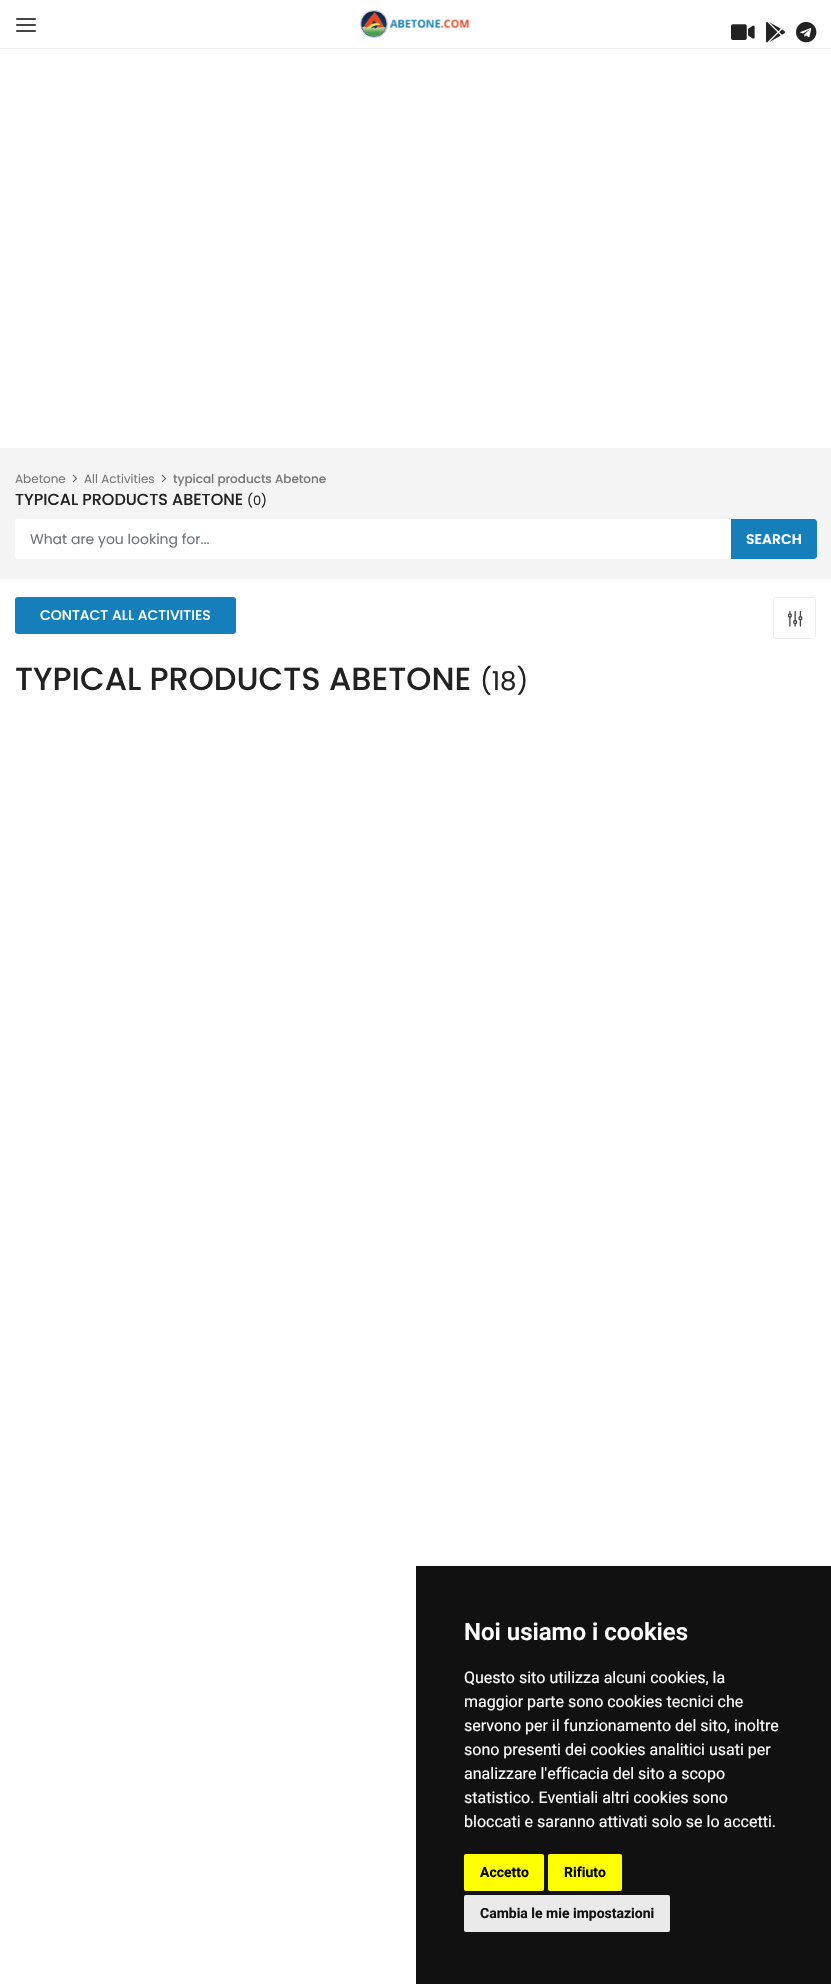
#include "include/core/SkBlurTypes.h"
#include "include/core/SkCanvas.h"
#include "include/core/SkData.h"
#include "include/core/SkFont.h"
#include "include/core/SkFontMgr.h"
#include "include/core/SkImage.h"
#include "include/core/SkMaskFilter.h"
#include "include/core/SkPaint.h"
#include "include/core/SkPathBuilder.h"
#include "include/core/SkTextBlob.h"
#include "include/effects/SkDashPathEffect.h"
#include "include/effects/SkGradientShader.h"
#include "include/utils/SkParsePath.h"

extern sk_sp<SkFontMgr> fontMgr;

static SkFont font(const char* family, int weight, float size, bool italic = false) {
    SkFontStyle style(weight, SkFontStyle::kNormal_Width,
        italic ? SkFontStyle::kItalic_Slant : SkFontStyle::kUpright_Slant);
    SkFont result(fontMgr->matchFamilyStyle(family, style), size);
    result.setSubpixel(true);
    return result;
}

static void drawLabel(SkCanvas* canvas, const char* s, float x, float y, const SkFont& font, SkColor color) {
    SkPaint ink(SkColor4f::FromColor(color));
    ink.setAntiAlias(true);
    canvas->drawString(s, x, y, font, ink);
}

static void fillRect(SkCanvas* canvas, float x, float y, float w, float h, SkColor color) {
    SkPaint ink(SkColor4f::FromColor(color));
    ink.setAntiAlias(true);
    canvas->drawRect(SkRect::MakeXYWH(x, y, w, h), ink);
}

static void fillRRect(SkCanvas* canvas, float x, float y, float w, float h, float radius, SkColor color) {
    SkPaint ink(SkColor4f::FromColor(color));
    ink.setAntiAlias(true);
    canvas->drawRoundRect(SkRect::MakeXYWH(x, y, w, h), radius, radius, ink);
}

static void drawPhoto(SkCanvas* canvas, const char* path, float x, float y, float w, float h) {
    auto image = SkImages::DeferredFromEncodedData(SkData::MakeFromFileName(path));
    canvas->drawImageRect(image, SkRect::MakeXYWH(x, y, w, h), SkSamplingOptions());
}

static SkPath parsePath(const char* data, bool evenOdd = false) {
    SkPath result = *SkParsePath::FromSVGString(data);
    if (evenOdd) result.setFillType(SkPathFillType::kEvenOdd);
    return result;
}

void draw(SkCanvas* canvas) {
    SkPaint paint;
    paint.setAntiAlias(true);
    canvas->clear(0xFFFFFFFF);
    fillRect(canvas, 0, 48, 831, 1, 0xFFEDEDED);
    drawPhoto(canvas, "assets/img1.png", 16, 18, 20, 14);
    drawPhoto(canvas, "assets/img2.png", 359, 10, 111, 28);
    drawPhoto(canvas, "assets/img3.png", 731, 24, 24, 16);
    drawPhoto(canvas, "assets/img4.png", 766, 21, 19, 22);
    drawPhoto(canvas, "assets/img5.png", 796, 22, 21, 21);
    fillRect(canvas, 0, 448, 831, 131, 0xFFF4F4F4);
    SkFont font1 = font("Poppins", 400, 12);
    drawLabel(canvas, "Abetone", 15, 483, font1, 0xFF777777);
    drawPhoto(canvas, "assets/img6.png", 72, 474, 5, 9);
    drawLabel(canvas, "All Activities", 84, 483, font1, 0xFF777777);
    drawPhoto(canvas, "assets/img6.png", 161, 474, 5, 9);
    SkFont font2 = font("Poppins", 500, 12);
    drawLabel(canvas, "typical products Abetone", 173, 483, font2, 0xFF777777);
    SkFont font3 = font("Poppins", 500, 16);
    drawLabel(canvas, "TYPICAL PRODUCTS ABETONE", 15, 505, font3, 0xFF222222);
    SkFont font4 = font("Poppins", 400, 13);
    drawLabel(canvas, "(0)", 247, 505, font4, 0xFF222222);
    fillRRect(canvas, 15, 519, 801, 40, 3, 0xFFFFFFFF);
    SkFont font5 = font("Poppins", 400, 14);
    drawLabel(canvas, "What are you looking for...", 30, 544, font5, 0xFF6C757D);
    paint.setColor(0xFF157FBB);
    canvas->drawPath(parsePath("M731 519H814C815.5 519 817 520.5 817 522V556C817 557.5 815.5 559 814 559H731Z"), paint);
    SkFont font6 = font("Poppins", 600, 14);
    drawLabel(canvas, "SEARCH", 746, 544, font6, 0xFFFFFFFF);
    fillRRect(canvas, 15, 597, 221, 37, 3, 0xFF157FBB);
    SkFont font7 = font("Poppins", 500, 14);
    drawLabel(canvas, "CONTACT ALL ACTIVITIES", 40, 620, font7, 0xFFFFFFFF);
    paint.setStroke(true);
    paint.setStrokeWidth(1);
    paint.setColor(0xFFEDEDED);
    canvas->drawRoundRect(SkRect::MakeXYWH(773.5f, 597.5f, 42, 41), 2.5f, 2.5f, paint);
    drawPhoto(canvas, "assets/img7.png", 787, 611, 16, 16);
    SkFont font8 = font("Poppins", 500, 32);
    drawLabel(canvas, "TYPICAL PRODUCTS ABETONE", 15, 690, font8, 0xFF222222);
    SkFont font9 = font("Poppins", 400, 26);
    drawLabel(canvas, "(18)", 480, 690, font9, 0xFF222222);
    fillRect(canvas, 416, 1566, 415, 418, 0xFF111111);
    SkFont font10 = font("Roboto", 600, 24);
    drawLabel(canvas, "Noi usiamo i cookies", 464, 1640, font10, 0xFFFFFFFF);
    SkFont font11 = font("Roboto", 400, 16);
    drawLabel(canvas, "Questo sito utilizza alcuni cookies, la", 464, 1683, font11, 0xFFFFFFFF);
    drawLabel(canvas, "maggior parte sono cookies tecnici che", 464, 1707, font11, 0xFFFFFFFF);
    drawLabel(canvas, "servono per il funzionamento del sito, inoltre", 464, 1731, font11, 0xFFFFFFFF);
    drawLabel(canvas, "sono presenti dei cookies analitici usati per", 464, 1755, font11, 0xFFFFFFFF);
    drawLabel(canvas, "analizzare l'efficacia del sito a scopo", 464, 1779, font11, 0xFFFFFFFF);
    drawLabel(canvas, "statistico. Eventiali altri cookies sono", 464, 1803, font11, 0xFFFFFFFF);
    drawLabel(canvas, "bloccati e saranno attivati solo se lo accetti.", 464, 1827, font11, 0xFFFFFFFF);
    fillRRect(canvas, 464, 1854, 80, 37, 2, 0xFFFFFF00);
    SkFont font12 = font("Roboto", 700, 14);
    drawLabel(canvas, "Accetto", 480, 1877, font12, 0xFF000000);
    fillRRect(canvas, 548, 1854, 74, 37, 2, 0xFFFFFF00);
    drawLabel(canvas, "Rifiuto", 564, 1877, font12, 0xFF000000);
    fillRRect(canvas, 464, 1895, 206, 37, 2, 0xFFEAEAEA);
    drawLabel(canvas, "Cambia le mie impostazioni", 480, 1918, font12, 0xFF111111);
}
